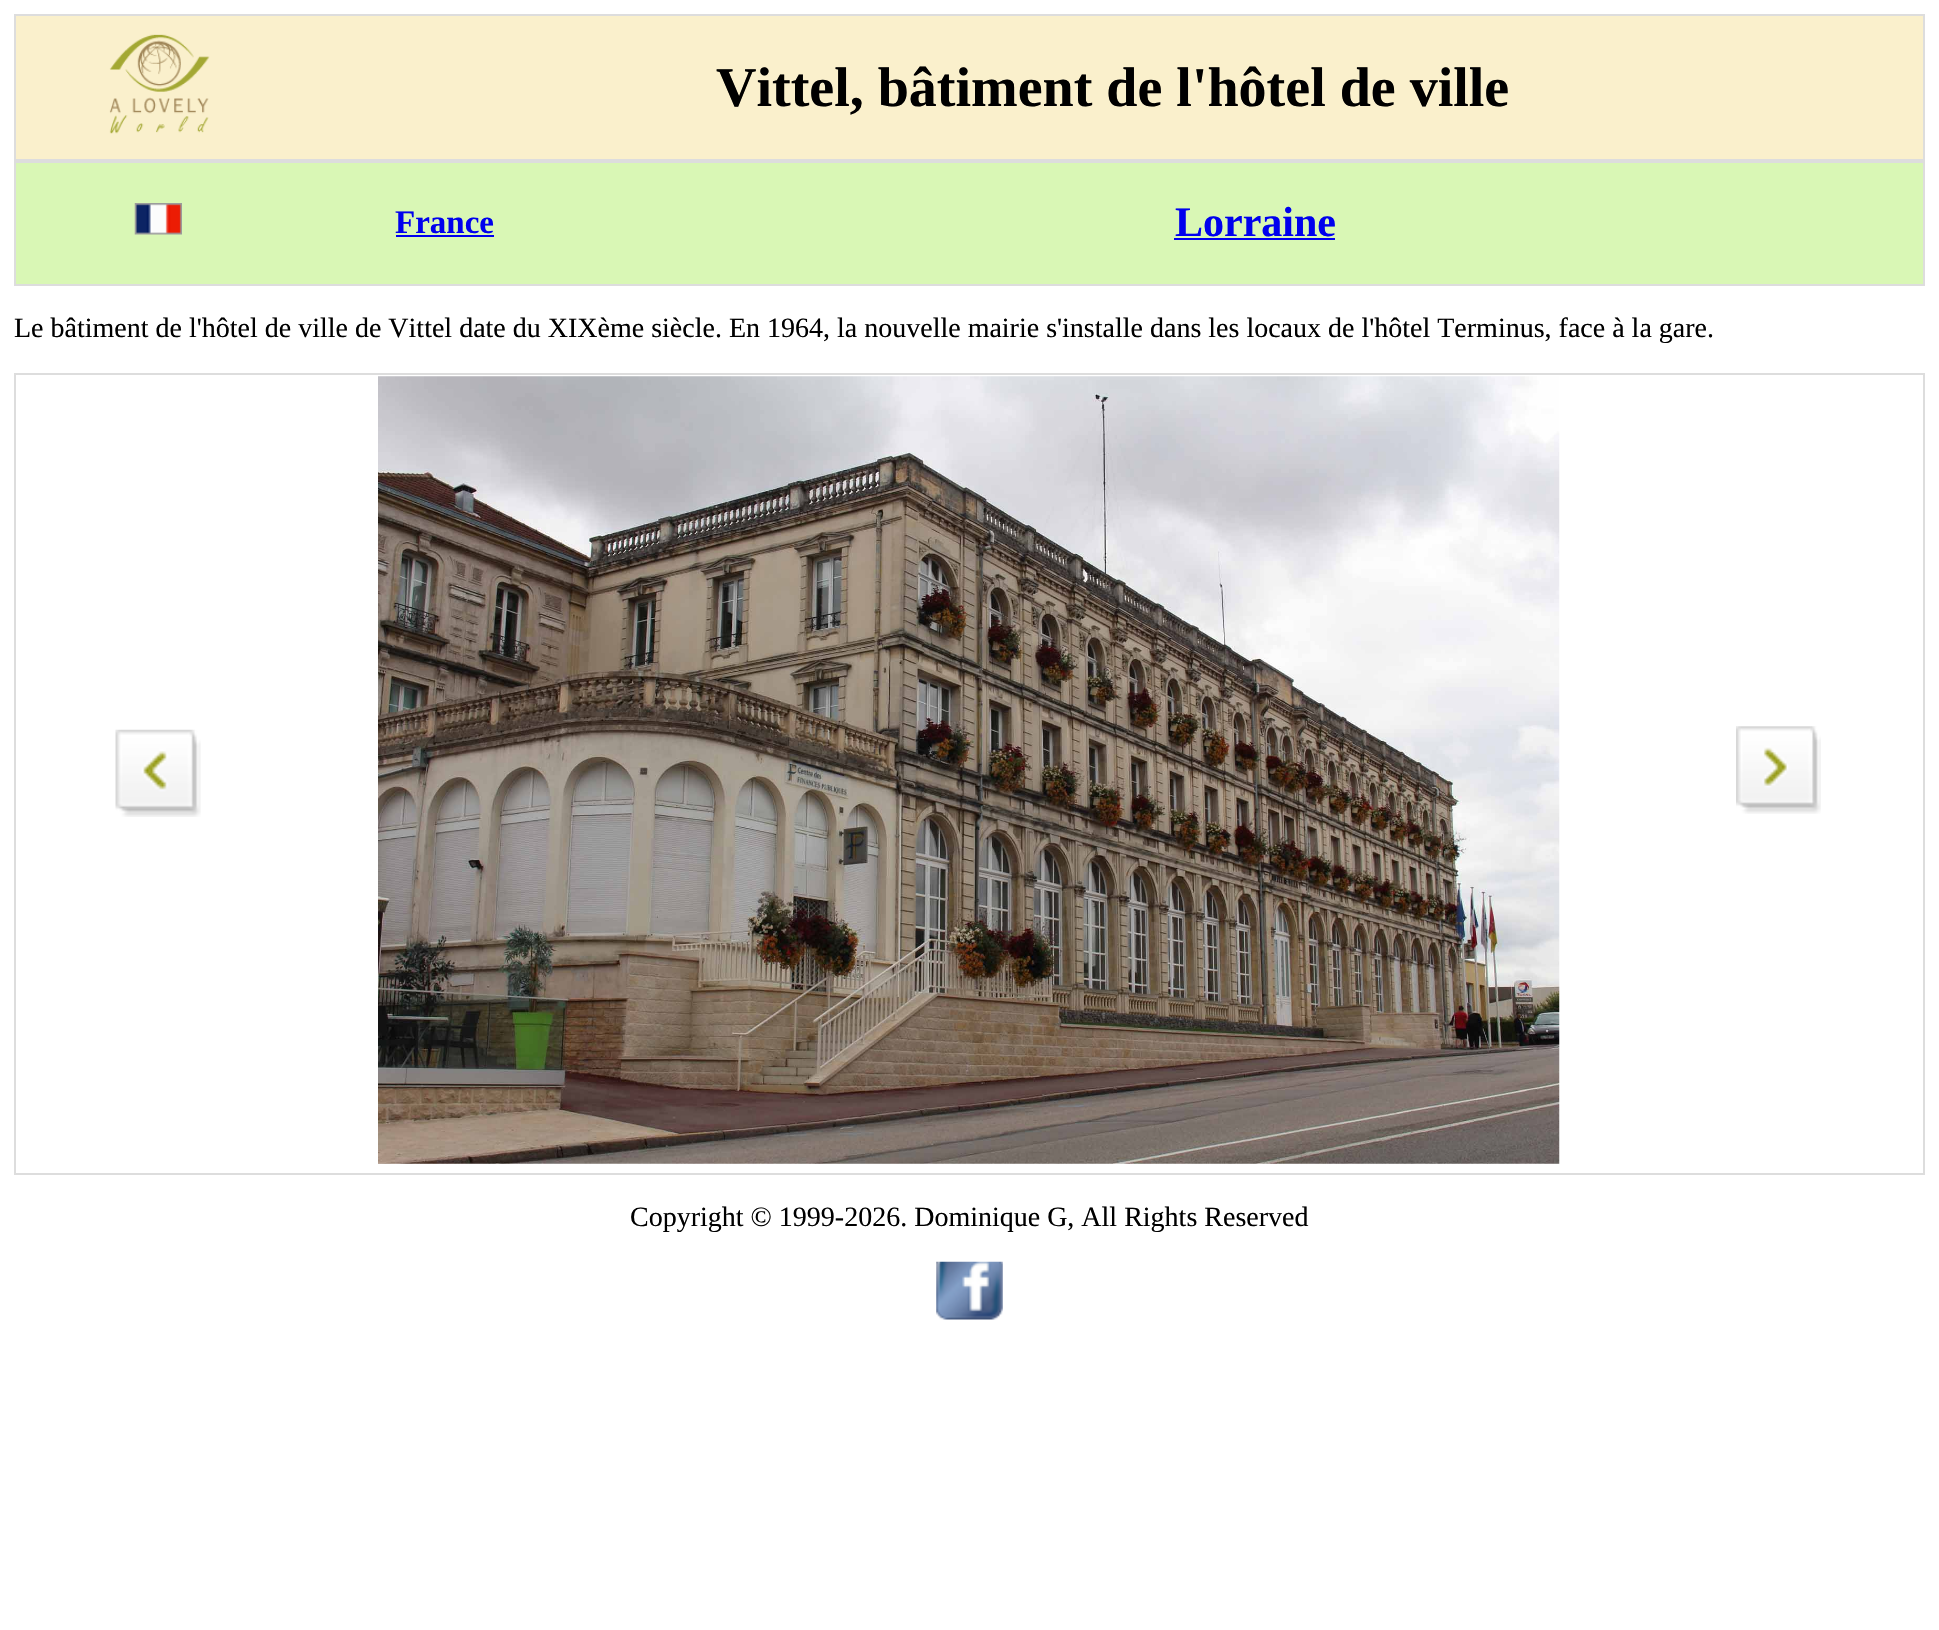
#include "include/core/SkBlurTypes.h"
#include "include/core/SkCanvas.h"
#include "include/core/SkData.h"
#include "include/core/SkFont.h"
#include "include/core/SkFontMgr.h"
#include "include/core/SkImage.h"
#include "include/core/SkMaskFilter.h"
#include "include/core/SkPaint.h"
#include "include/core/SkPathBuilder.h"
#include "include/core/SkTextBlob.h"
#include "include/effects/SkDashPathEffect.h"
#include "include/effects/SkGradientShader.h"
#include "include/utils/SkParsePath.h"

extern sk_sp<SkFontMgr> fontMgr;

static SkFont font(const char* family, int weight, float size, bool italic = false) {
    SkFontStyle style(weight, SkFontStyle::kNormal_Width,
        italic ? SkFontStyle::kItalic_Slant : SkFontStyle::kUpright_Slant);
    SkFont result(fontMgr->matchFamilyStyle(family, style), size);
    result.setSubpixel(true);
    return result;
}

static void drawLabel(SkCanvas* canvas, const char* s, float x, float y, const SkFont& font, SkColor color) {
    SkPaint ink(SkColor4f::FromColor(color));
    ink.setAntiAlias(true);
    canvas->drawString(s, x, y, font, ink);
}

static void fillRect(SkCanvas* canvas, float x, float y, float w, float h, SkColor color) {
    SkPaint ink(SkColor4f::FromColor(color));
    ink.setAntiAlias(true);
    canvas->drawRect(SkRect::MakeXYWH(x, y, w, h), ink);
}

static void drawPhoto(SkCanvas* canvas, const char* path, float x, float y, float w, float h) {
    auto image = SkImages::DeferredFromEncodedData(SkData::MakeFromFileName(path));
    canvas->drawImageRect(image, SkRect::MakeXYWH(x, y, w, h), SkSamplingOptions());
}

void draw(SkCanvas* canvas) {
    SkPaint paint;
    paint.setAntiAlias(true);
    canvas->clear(0xFFFFFFFF);
    fillRect(canvas, 16, 16, 1907, 143, 0xFFFAF0CC);
    fillRect(canvas, 14, 14, 1911, 2, 0xFFDDDDDD);
    fillRect(canvas, 1923, 14, 2, 147, 0xFFDDDDDD);
    fillRect(canvas, 14, 159, 1911, 4, 0xFFDDDDDD);
    fillRect(canvas, 14, 14, 2, 147, 0xFFDDDDDD);
    drawPhoto(canvas, "assets/img1.png", 109, 34, 101, 100);
    SkFont font1 = font("Liberation Serif", 700, 56);
    drawLabel(canvas, "Vittel, bâtiment de l'hôtel de ville", 716, 106, font1, 0xFF000000);
    fillRect(canvas, 16, 163, 1907, 121, 0xFFD9F7B5);
    fillRect(canvas, 1923, 161, 2, 124, 0xFFDDDDDD);
    fillRect(canvas, 14, 284, 1911, 2, 0xFFDDDDDD);
    fillRect(canvas, 14, 161, 2, 124, 0xFFDDDDDD);
    drawPhoto(canvas, "assets/img2.png", 134, 203, 48, 32);
    SkFont font2 = font("Liberation Serif", 700, 33);
    drawLabel(canvas, "France", 395, 233, font2, 0xFF0000EE);
    fillRect(canvas, 396, 235, 98, 2, 0xFF0000EE);
    SkFont font3 = font("Liberation Serif", 700, 42);
    drawLabel(canvas, "Lorraine", 1175, 236, font3, 0xFF0000EE);
    fillRect(canvas, 1174, 238, 161, 2, 0xFF0000EE);
    SkFont font4 = font("Liberation Serif", 400, 28);
    drawLabel(canvas, "Le bâtiment de l'hôtel de ville de Vittel date du XIXème siècle. En 1964, la nouvelle mairie s'installe dans les locaux de l'hôtel Terminus, face à la gare.", 14, 337, font4, 0xFF000000);
    fillRect(canvas, 14, 373, 1911, 2, 0xFFDDDDDD);
    fillRect(canvas, 1923, 373, 2, 801, 0xFFDDDDDD);
    fillRect(canvas, 14, 1173, 1911, 2, 0xFFDDDDDD);
    fillRect(canvas, 14, 373, 2, 801, 0xFFDDDDDD);
    drawPhoto(canvas, "assets/img3.png", 115, 729, 86, 88);
    drawPhoto(canvas, "assets/img4.png", 378, 376, 1182, 788);
    drawPhoto(canvas, "assets/img5.png", 1736, 726, 85, 88);
    drawLabel(canvas, "Copyright © 1999-2026. Dominique G, All Rights Reserved", 630, 1226, font4, 0xFF000000);
    drawPhoto(canvas, "assets/img6.png", 936, 1261, 67, 59);
}
